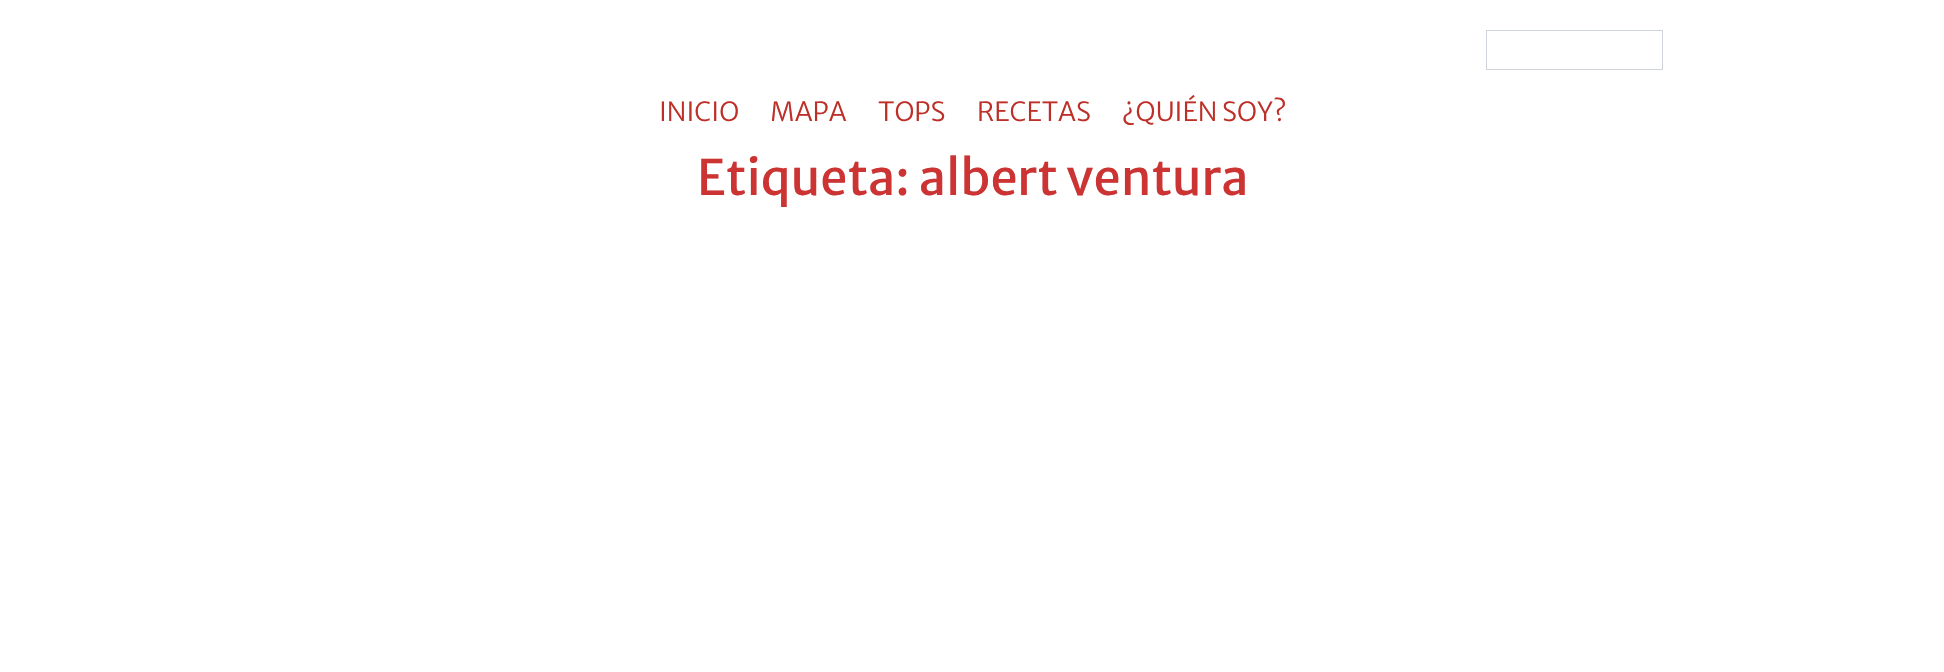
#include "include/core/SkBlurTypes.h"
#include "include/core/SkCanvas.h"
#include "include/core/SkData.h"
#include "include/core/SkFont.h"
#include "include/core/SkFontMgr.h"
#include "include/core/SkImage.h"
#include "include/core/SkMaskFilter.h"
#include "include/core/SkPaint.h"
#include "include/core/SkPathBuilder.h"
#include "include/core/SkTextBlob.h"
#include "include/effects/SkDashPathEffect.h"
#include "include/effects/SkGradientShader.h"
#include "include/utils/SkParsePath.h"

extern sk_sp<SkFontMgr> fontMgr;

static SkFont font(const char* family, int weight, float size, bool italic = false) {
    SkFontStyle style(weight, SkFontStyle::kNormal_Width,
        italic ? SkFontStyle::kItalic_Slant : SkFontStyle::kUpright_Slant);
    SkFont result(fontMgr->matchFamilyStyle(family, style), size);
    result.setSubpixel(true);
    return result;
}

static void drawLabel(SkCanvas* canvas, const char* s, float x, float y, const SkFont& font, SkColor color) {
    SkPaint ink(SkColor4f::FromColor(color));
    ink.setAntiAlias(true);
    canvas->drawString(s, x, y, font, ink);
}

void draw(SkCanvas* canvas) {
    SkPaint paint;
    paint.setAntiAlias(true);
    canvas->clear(0xFFFFFFFF);
    paint.setStroke(true);
    paint.setStrokeWidth(1);
    paint.setColor(0xFFCED4DA);
    canvas->drawRect(SkRect::MakeXYWH(1486.5f, 30.5f, 176, 39), paint);
    SkFont font1 = font("Merriweather Sans", 300, 26.25f);
    drawLabel(canvas, "INICIO", 659, 121, font1, 0xFFBD2F27);
    drawLabel(canvas, "MAPA", 770, 121, font1, 0xFFBD2F27);
    drawLabel(canvas, "TOPS", 878, 121, font1, 0xFFBD2F27);
    drawLabel(canvas, "RECETAS", 977, 121, font1, 0xFFBD2F27);
    drawLabel(canvas, "¿QUIÉN SOY?", 1122, 121, font1, 0xFFBD2F27);
    SkFont font2 = font("Merriweather Sans", 400, 48.75f);
    drawLabel(canvas, "Etiqueta: albert ventura", 697, 195, font2, 0xFFCC3333);
}
